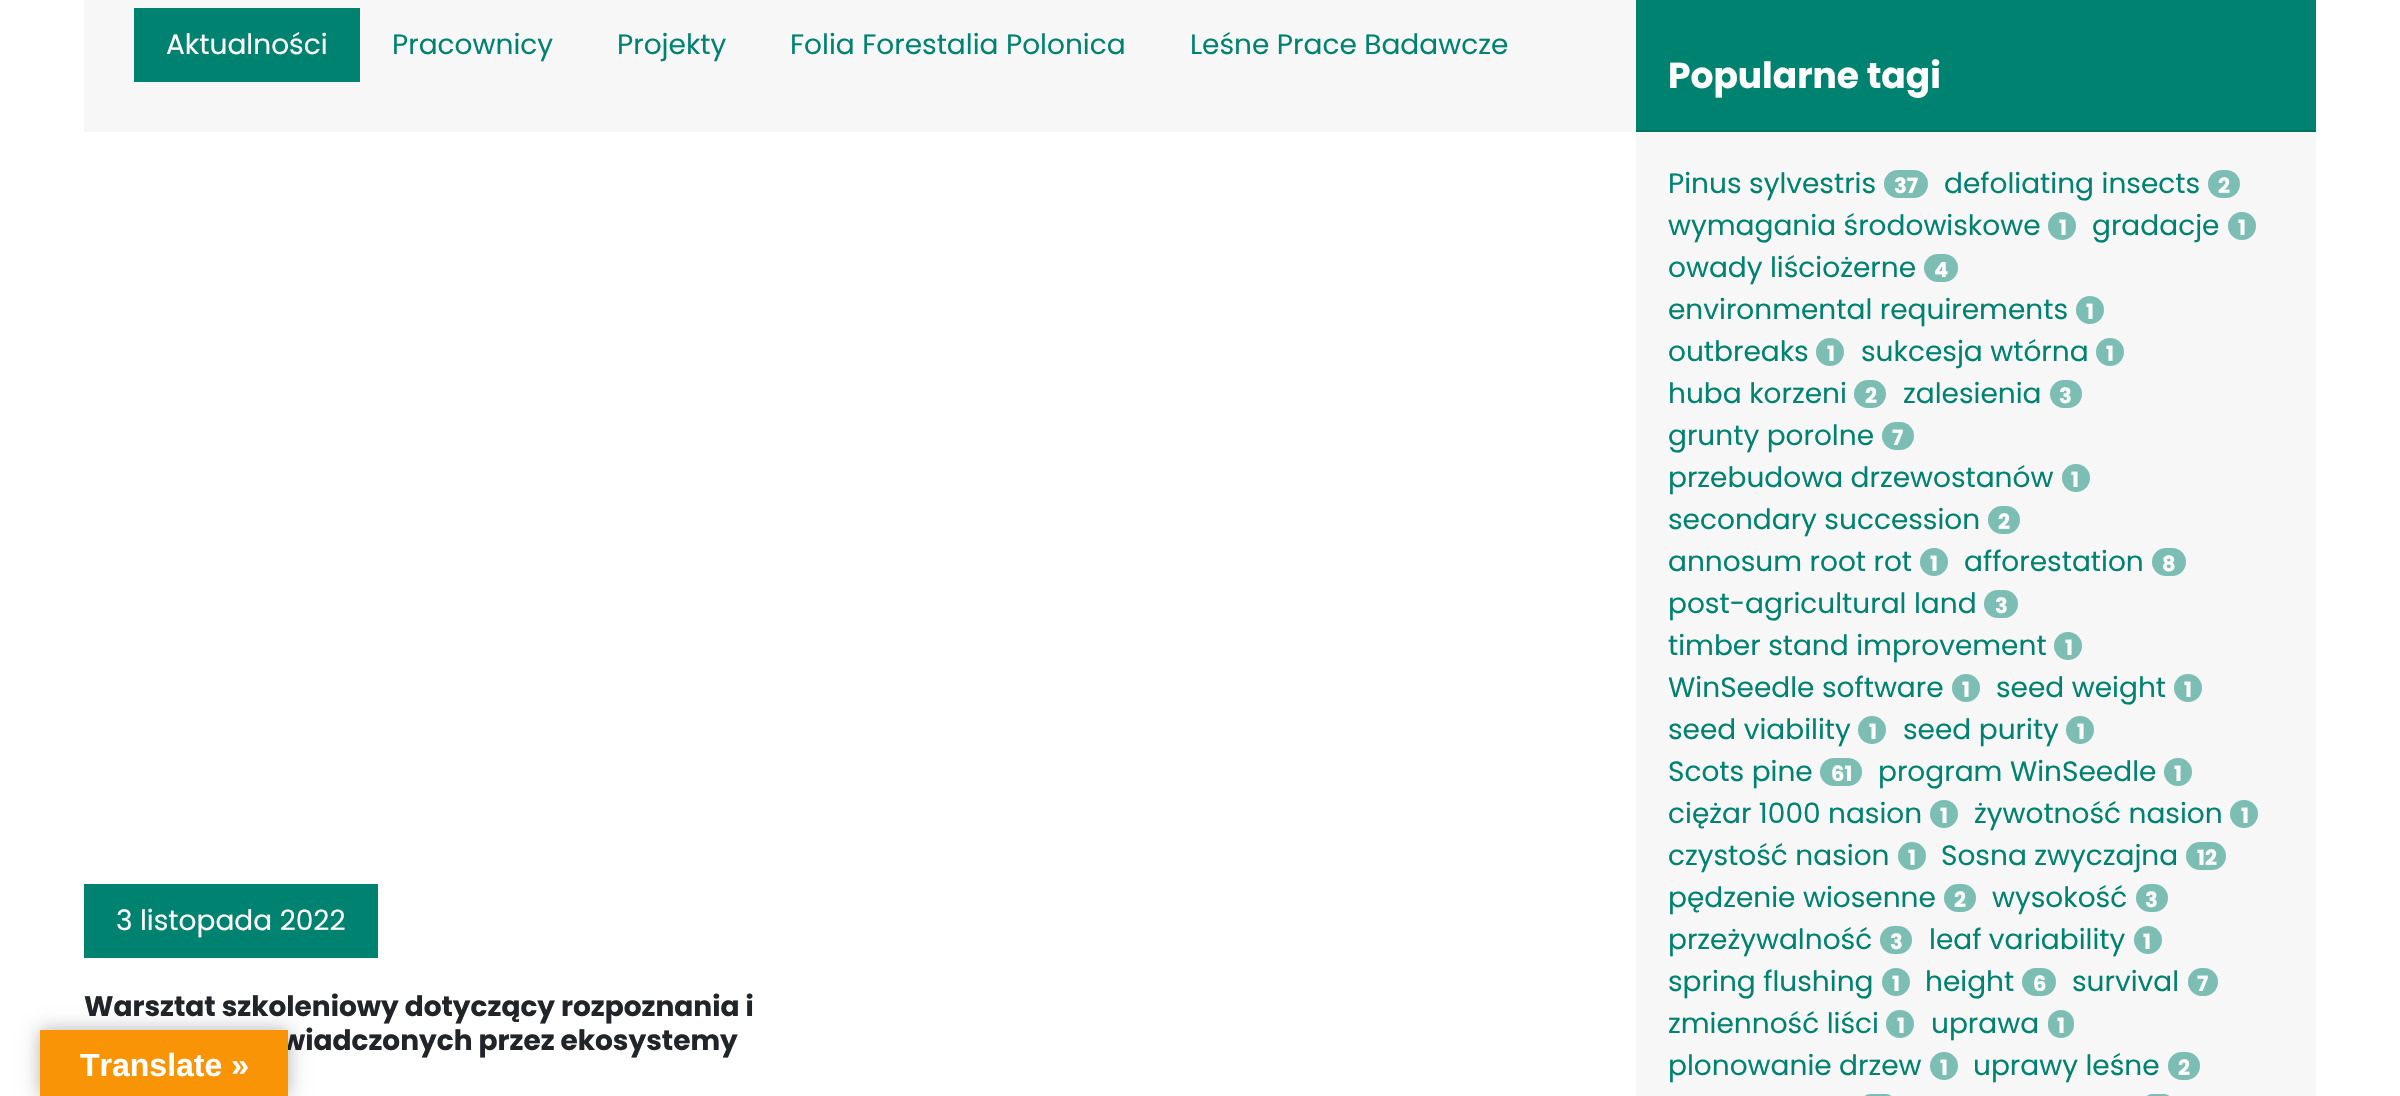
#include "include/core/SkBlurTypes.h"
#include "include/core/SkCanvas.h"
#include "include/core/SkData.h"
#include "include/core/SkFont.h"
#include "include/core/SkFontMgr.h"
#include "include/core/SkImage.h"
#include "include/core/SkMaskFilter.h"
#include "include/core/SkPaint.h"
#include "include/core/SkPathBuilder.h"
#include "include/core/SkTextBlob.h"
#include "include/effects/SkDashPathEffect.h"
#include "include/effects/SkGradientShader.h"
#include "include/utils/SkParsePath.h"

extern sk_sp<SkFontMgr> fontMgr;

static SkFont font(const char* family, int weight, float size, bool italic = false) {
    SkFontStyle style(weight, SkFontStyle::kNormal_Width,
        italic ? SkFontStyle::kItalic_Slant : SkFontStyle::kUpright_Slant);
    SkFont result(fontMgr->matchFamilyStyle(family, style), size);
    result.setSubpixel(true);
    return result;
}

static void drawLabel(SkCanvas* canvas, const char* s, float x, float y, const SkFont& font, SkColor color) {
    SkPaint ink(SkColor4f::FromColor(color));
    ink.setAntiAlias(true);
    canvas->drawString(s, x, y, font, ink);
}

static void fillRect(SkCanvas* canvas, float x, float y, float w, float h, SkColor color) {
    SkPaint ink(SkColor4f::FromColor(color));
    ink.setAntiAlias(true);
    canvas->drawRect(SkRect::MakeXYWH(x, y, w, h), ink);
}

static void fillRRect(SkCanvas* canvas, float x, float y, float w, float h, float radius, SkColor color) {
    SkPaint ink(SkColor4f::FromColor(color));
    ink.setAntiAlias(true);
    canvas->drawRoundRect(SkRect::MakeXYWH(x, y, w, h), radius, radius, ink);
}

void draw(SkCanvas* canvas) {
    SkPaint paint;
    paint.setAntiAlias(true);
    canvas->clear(0xFFFFFFFF);
    fillRect(canvas, 84, 0, 1552, 132, 0xFFF7F7F7);
    fillRect(canvas, 134, 8, 226, 74, 0xFF008270);
    SkFont font1 = font("Poppins", 400, 28);
    drawLabel(canvas, "Aktualności", 166, 54, font1, 0xFFFFFFFF);
    drawLabel(canvas, "Pracownicy", 392, 54, font1, 0xFF008270);
    drawLabel(canvas, "Projekty", 617, 54, font1, 0xFF008270);
    drawLabel(canvas, "Folia Forestalia Polonica", 790, 54, font1, 0xFF008270);
    drawLabel(canvas, "Leśne Prace Badawcze", 1190, 54, font1, 0xFF008270);
    fillRect(canvas, 84, 884, 294, 74, 0xFF008270);
    drawLabel(canvas, "3 listopada 2022", 116, 930, font1, 0xFFFFFFFF);
    SkFont font2 = font("Poppins", 700, 28);
    drawLabel(canvas, "Warsztat szkoleniowy dotyczący rozpoznania i", 84, 1016, font2, 0xFF212529);
    drawLabel(canvas, "wiadczonych przez ekosystemy", 281, 1050, font2, 0xFF212529);
    fillRect(canvas, 1636, 132, 680, 964, 0xFFF7F7F7);
    fillRect(canvas, 1636, 0, 680, 130, 0xFF008270);
    fillRect(canvas, 1636, 130, 680, 2, 0xFF007262);
    SkFont font3 = font("Poppins", 700, 36);
    drawLabel(canvas, "Popularne tagi", 1668, 88, font3, 0xFFFFFFFF);
    drawLabel(canvas, "Pinus sylvestris", 1668, 193, font1, 0xFF008270);
    fillRRect(canvas, 1884, 170, 44, 28, 14, 0xFF7CBDB4);
    SkFont font4 = font("Poppins", 700, 21);
    drawLabel(canvas, "37", 1894, 193, font4, 0xFFFFFFFF);
    drawLabel(canvas, "defoliating insects", 1944, 193, font1, 0xFF008270);
    fillRRect(canvas, 2208, 170, 32, 28, 14, 0xFF7CBDB4);
    drawLabel(canvas, "2", 2218, 193, font4, 0xFFFFFFFF);
    drawLabel(canvas, "wymagania środowiskowe", 1668, 235, font1, 0xFF008270);
    paint.setColor(0xFF7CBDB4);
    canvas->drawCircle(2062, 226, 14, paint);
    drawLabel(canvas, "1", 2059, 235, font4, 0xFFFFFFFF);
    drawLabel(canvas, "gradacje", 2092, 235, font1, 0xFF008270);
    canvas->drawCircle(2242, 226, 14, paint);
    drawLabel(canvas, "1", 2238, 235, font4, 0xFFFFFFFF);
    drawLabel(canvas, "owady liściożerne", 1668, 277, font1, 0xFF008270);
    fillRRect(canvas, 1924, 254, 34, 28, 14, 0xFF7CBDB4);
    drawLabel(canvas, "4", 1934, 277, font4, 0xFFFFFFFF);
    drawLabel(canvas, "environmental requirements", 1668, 319, font1, 0xFF008270);
    canvas->drawCircle(2090, 310, 14, paint);
    drawLabel(canvas, "1", 2086, 319, font4, 0xFFFFFFFF);
    drawLabel(canvas, "outbreaks", 1668, 361, font1, 0xFF008270);
    canvas->drawCircle(1830, 352, 14, paint);
    drawLabel(canvas, "1", 1827, 361, font4, 0xFFFFFFFF);
    drawLabel(canvas, "sukcesja wtórna", 1861, 361, font1, 0xFF008270);
    canvas->drawCircle(2110, 352, 14, paint);
    drawLabel(canvas, "1", 2106, 361, font4, 0xFFFFFFFF);
    drawLabel(canvas, "huba korzeni", 1668, 403, font1, 0xFF008270);
    fillRRect(canvas, 1854, 380, 32, 28, 14, 0xFF7CBDB4);
    drawLabel(canvas, "2", 1865, 403, font4, 0xFFFFFFFF);
    drawLabel(canvas, "zalesienia", 1903, 403, font1, 0xFF008270);
    fillRRect(canvas, 2050, 380, 32, 28, 14, 0xFF7CBDB4);
    drawLabel(canvas, "3", 2059, 403, font4, 0xFFFFFFFF);
    drawLabel(canvas, "grunty porolne", 1668, 445, font1, 0xFF008270);
    fillRRect(canvas, 1882, 422, 32, 28, 14, 0xFF7CBDB4);
    drawLabel(canvas, "7", 1892, 445, font4, 0xFFFFFFFF);
    drawLabel(canvas, "przebudowa drzewostanów", 1668, 487, font1, 0xFF008270);
    canvas->drawCircle(2076, 478, 14, paint);
    drawLabel(canvas, "1", 2071, 487, font4, 0xFFFFFFFF);
    drawLabel(canvas, "secondary succession", 1668, 529, font1, 0xFF008270);
    fillRRect(canvas, 1988, 506, 32, 28, 14, 0xFF7CBDB4);
    drawLabel(canvas, "2", 1998, 529, font4, 0xFFFFFFFF);
    drawLabel(canvas, "annosum root rot", 1668, 571, font1, 0xFF008270);
    canvas->drawCircle(1934, 562, 14, paint);
    drawLabel(canvas, "1", 1930, 571, font4, 0xFFFFFFFF);
    drawLabel(canvas, "afforestation", 1964, 571, font1, 0xFF008270);
    fillRRect(canvas, 2152, 548, 34, 28, 14, 0xFF7CBDB4);
    drawLabel(canvas, "8", 2162, 571, font4, 0xFFFFFFFF);
    drawLabel(canvas, "post-agricultural land", 1668, 613, font1, 0xFF008270);
    fillRRect(canvas, 1984, 590, 34, 28, 14, 0xFF7CBDB4);
    drawLabel(canvas, "3", 1995, 613, font4, 0xFFFFFFFF);
    drawLabel(canvas, "timber stand improvement", 1668, 655, font1, 0xFF008270);
    canvas->drawCircle(2068, 646, 14, paint);
    drawLabel(canvas, "1", 2065, 655, font4, 0xFFFFFFFF);
    drawLabel(canvas, "WinSeedle software", 1668, 697, font1, 0xFF008270);
    canvas->drawCircle(1966, 688, 14, paint);
    drawLabel(canvas, "1", 1962, 697, font4, 0xFFFFFFFF);
    drawLabel(canvas, "seed weight", 1996, 697, font1, 0xFF008270);
    canvas->drawCircle(2188, 688, 14, paint);
    drawLabel(canvas, "1", 2184, 697, font4, 0xFFFFFFFF);
    drawLabel(canvas, "seed viability", 1668, 739, font1, 0xFF008270);
    canvas->drawCircle(1872, 730, 14, paint);
    drawLabel(canvas, "1", 1869, 739, font4, 0xFFFFFFFF);
    drawLabel(canvas, "seed purity", 1903, 739, font1, 0xFF008270);
    canvas->drawCircle(2080, 730, 14, paint);
    drawLabel(canvas, "1", 2077, 739, font4, 0xFFFFFFFF);
    drawLabel(canvas, "Scots pine", 1668, 781, font1, 0xFF008270);
    fillRRect(canvas, 1820, 758, 42, 28, 14, 0xFF7CBDB4);
    drawLabel(canvas, "61", 1831, 781, font4, 0xFFFFFFFF);
    drawLabel(canvas, "program WinSeedle", 1878, 781, font1, 0xFF008270);
    canvas->drawCircle(2178, 772, 14, paint);
    drawLabel(canvas, "1", 2174, 781, font4, 0xFFFFFFFF);
    drawLabel(canvas, "ciężar 1000 nasion", 1668, 823, font1, 0xFF008270);
    canvas->drawCircle(1944, 814, 14, paint);
    drawLabel(canvas, "1", 1940, 823, font4, 0xFFFFFFFF);
    drawLabel(canvas, "żywotność nasion", 1974, 823, font1, 0xFF008270);
    canvas->drawCircle(2244, 814, 14, paint);
    drawLabel(canvas, "1", 2241, 823, font4, 0xFFFFFFFF);
    drawLabel(canvas, "czystość nasion", 1668, 865, font1, 0xFF008270);
    canvas->drawCircle(1912, 856, 14, paint);
    drawLabel(canvas, "1", 1908, 865, font4, 0xFFFFFFFF);
    drawLabel(canvas, "Sosna zwyczajna", 1941, 865, font1, 0xFF008270);
    fillRRect(canvas, 2186, 842, 40, 28, 14, 0xFF7CBDB4);
    drawLabel(canvas, "12", 2197, 865, font4, 0xFFFFFFFF);
    drawLabel(canvas, "pędzenie wiosenne", 1668, 907, font1, 0xFF008270);
    fillRRect(canvas, 1944, 884, 32, 28, 14, 0xFF7CBDB4);
    drawLabel(canvas, "2", 1954, 907, font4, 0xFFFFFFFF);
    drawLabel(canvas, "wysokość", 1992, 907, font1, 0xFF008270);
    fillRRect(canvas, 2136, 884, 32, 28, 14, 0xFF7CBDB4);
    drawLabel(canvas, "3", 2145, 907, font4, 0xFFFFFFFF);
    drawLabel(canvas, "przeżywalność", 1668, 949, font1, 0xFF008270);
    fillRRect(canvas, 1880, 926, 32, 28, 14, 0xFF7CBDB4);
    drawLabel(canvas, "3", 1890, 949, font4, 0xFFFFFFFF);
    drawLabel(canvas, "leaf variability", 1929, 949, font1, 0xFF008270);
    canvas->drawCircle(2148, 940, 14, paint);
    drawLabel(canvas, "1", 2143, 949, font4, 0xFFFFFFFF);
    drawLabel(canvas, "spring flushing", 1668, 991, font1, 0xFF008270);
    canvas->drawCircle(1896, 982, 14, paint);
    drawLabel(canvas, "1", 1892, 991, font4, 0xFFFFFFFF);
    drawLabel(canvas, "height", 1925, 991, font1, 0xFF008270);
    fillRRect(canvas, 2022, 968, 34, 28, 14, 0xFF7CBDB4);
    drawLabel(canvas, "6", 2033, 991, font4, 0xFFFFFFFF);
    drawLabel(canvas, "survival", 2072, 991, font1, 0xFF008270);
    fillRRect(canvas, 2188, 968, 30, 28, 14, 0xFF7CBDB4);
    drawLabel(canvas, "7", 2197, 991, font4, 0xFFFFFFFF);
    drawLabel(canvas, "zmienność liści", 1668, 1033, font1, 0xFF008270);
    canvas->drawCircle(1900, 1024, 14, paint);
    drawLabel(canvas, "1", 1897, 1033, font4, 0xFFFFFFFF);
    drawLabel(canvas, "uprawa", 1931, 1033, font1, 0xFF008270);
    fillRRect(canvas, 2048, 1010, 26, 28, 13, 0xFF7CBDB4);
    drawLabel(canvas, "1", 2057, 1033, font4, 0xFFFFFFFF);
    drawLabel(canvas, "plonowanie drzew", 1668, 1075, font1, 0xFF008270);
    canvas->drawCircle(1944, 1066, 14, paint);
    drawLabel(canvas, "1", 1940, 1075, font4, 0xFFFFFFFF);
    drawLabel(canvas, "uprawy leśne", 1973, 1075, font1, 0xFF008270);
    fillRRect(canvas, 2168, 1052, 32, 28, 14, 0xFF7CBDB4);
    drawLabel(canvas, "2", 2178, 1075, font4, 0xFFFFFFFF);
    fillRRect(canvas, 1862, 1094, 32, 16, 14, 0xFF7CBDB4);
    fillRRect(canvas, 2144, 1094, 28, 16, 14, 0xFF7CBDB4);
    paint.setColor(0x4D000000);
    paint.setMaskFilter(SkMaskFilter::MakeBlur(kNormal_SkBlurStyle, 9));
    canvas->drawRect(SkRect::MakeXYWH(40, 1030, 248, 66), paint);
    paint.setMaskFilter(nullptr);
    fillRect(canvas, 40, 1030, 248, 66, 0xFFF89406);
    SkFont font5 = font("Liberation Sans", 700, 32);
    drawLabel(canvas, "Translate »", 80, 1076, font5, 0xFFFFFFFF);
}
